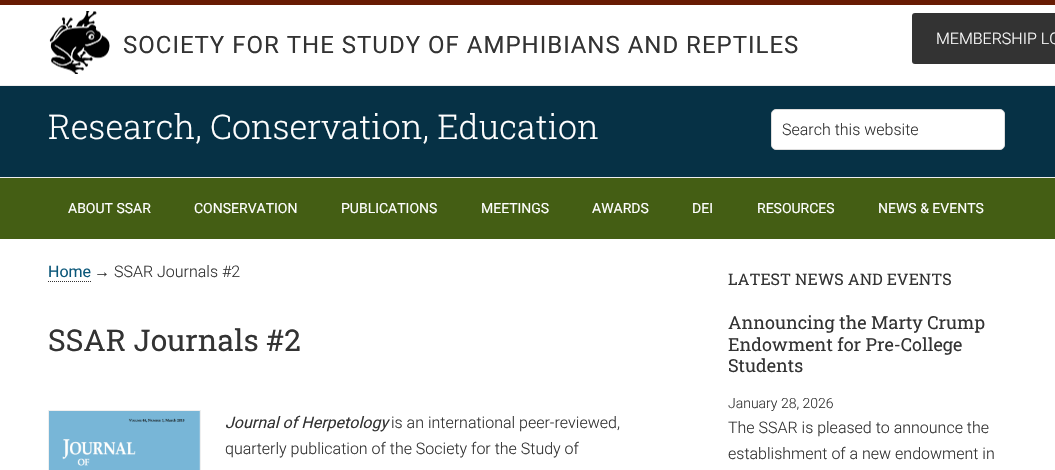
#include "include/core/SkBlurTypes.h"
#include "include/core/SkCanvas.h"
#include "include/core/SkData.h"
#include "include/core/SkFont.h"
#include "include/core/SkFontMgr.h"
#include "include/core/SkImage.h"
#include "include/core/SkMaskFilter.h"
#include "include/core/SkPaint.h"
#include "include/core/SkPathBuilder.h"
#include "include/core/SkTextBlob.h"
#include "include/effects/SkDashPathEffect.h"
#include "include/effects/SkGradientShader.h"
#include "include/utils/SkParsePath.h"

extern sk_sp<SkFontMgr> fontMgr;

static SkFont font(const char* family, int weight, float size, bool italic = false) {
    SkFontStyle style(weight, SkFontStyle::kNormal_Width,
        italic ? SkFontStyle::kItalic_Slant : SkFontStyle::kUpright_Slant);
    SkFont result(fontMgr->matchFamilyStyle(family, style), size);
    result.setSubpixel(true);
    return result;
}

static void drawLabel(SkCanvas* canvas, const char* s, float x, float y, const SkFont& font, SkColor color) {
    SkPaint ink(SkColor4f::FromColor(color));
    ink.setAntiAlias(true);
    canvas->drawString(s, x, y, font, ink);
}

static void drawTracked(SkCanvas* canvas, const char* s, float x, float y, const SkFont& font, const SkPaint& ink, float letter, float word) {
    std::vector<SkGlyphID> glyphs(font.countText(s, strlen(s), SkTextEncoding::kUTF8));
    std::vector<float> xs(glyphs.size());
    font.textToGlyphs(s, strlen(s), SkTextEncoding::kUTF8, glyphs);
    font.getXPos(glyphs, xs, x);
    float extra = 0;
    for (size_t i = 0; i < glyphs.size(); i++) {
        xs[i] += extra;
        extra += letter + word * (glyphs[i] == font.unicharToGlyph(' '));
    }
    canvas->drawTextBlob(SkTextBlob::MakeFromPosHGlyphs(glyphs, xs, y, font), 0, 0, ink);
}

static void fillRect(SkCanvas* canvas, float x, float y, float w, float h, SkColor color) {
    SkPaint ink(SkColor4f::FromColor(color));
    ink.setAntiAlias(true);
    canvas->drawRect(SkRect::MakeXYWH(x, y, w, h), ink);
}

static void fillRRect(SkCanvas* canvas, float x, float y, float w, float h, float radius, SkColor color) {
    SkPaint ink(SkColor4f::FromColor(color));
    ink.setAntiAlias(true);
    canvas->drawRoundRect(SkRect::MakeXYWH(x, y, w, h), radius, radius, ink);
}

static void drawPhoto(SkCanvas* canvas, const char* path, float x, float y, float w, float h) {
    auto image = SkImages::DeferredFromEncodedData(SkData::MakeFromFileName(path));
    canvas->drawImageRect(image, SkRect::MakeXYWH(x, y, w, h), SkSamplingOptions());
}

static SkPath parsePath(const char* data, bool evenOdd = false) {
    SkPath result = *SkParsePath::FromSVGString(data);
    if (evenOdd) result.setFillType(SkPathFillType::kEvenOdd);
    return result;
}

void draw(SkCanvas* canvas) {
    SkPaint paint;
    paint.setAntiAlias(true);
    canvas->clear(0xFFFFFFFF);
    fillRect(canvas, 0, 0, 1055, 5, 0xFF681B03);
    fillRect(canvas, 0, 85, 1055, 1, 0xFFEEEEEE);
    drawPhoto(canvas, "assets/img1.png", 49, 11, 61, 63);
    SkFont font1 = font("Roboto", 400, 24);
    paint.setColor(0xFF333333);
    drawTracked(canvas, "SOCIETY FOR THE STUDY OF AMPHIBIANS AND REPTILES", 123, 53, font1, paint, 1, 0);
    fillRRect(canvas, 912, 13, 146, 51, 3, 0xFF333333);
    SkFont font2 = font("Roboto", 300, 16);
    drawLabel(canvas, "MEMBERSHIP LO", 936, 44, font2, 0xFFFFFFFF);
    fillRect(canvas, 0, 86, 1055, 91, 0xFF063145);
    fillRect(canvas, 0, 177, 1055, 1, 0xFFEEEEEE);
    SkFont font3 = font("Roboto Slab", 300, 34);
    drawLabel(canvas, "Research, Conservation, Education", 48, 139, font3, 0xFFFFFFFF);
    paint.setColor(0xFFFFFFFF);
    canvas->drawRoundRect(SkRect::MakeXYWH(771.5f, 109.5f, 233, 40), 4.5f, 4.5f, paint);
    paint.setStroke(true);
    paint.setStrokeWidth(1);
    paint.setColor(0xFFDDDDDD);
    canvas->drawRoundRect(SkRect::MakeXYWH(771.5f, 109.5f, 233, 40), 4.5f, 4.5f, paint);
    drawLabel(canvas, "Search this website", 782, 135, font2, 0xFF333333);
    fillRect(canvas, 0, 178, 1055, 61, 0xFF445E14);
    SkFont font4 = font("Roboto", 400, 14);
    drawLabel(canvas, "ABOUT SSAR", 68, 213, font4, 0xFFFFFFFF);
    drawLabel(canvas, "CONSERVATION", 194, 213, font4, 0xFFFFFFFF);
    drawLabel(canvas, "PUBLICATIONS", 341, 213, font4, 0xFFFFFFFF);
    drawLabel(canvas, "MEETINGS", 481, 213, font4, 0xFFFFFFFF);
    drawLabel(canvas, "AWARDS", 592, 213, font4, 0xFFFFFFFF);
    drawLabel(canvas, "DEI", 692, 213, font4, 0xFFFFFFFF);
    drawLabel(canvas, "RESOURCES", 757, 213, font4, 0xFFFFFFFF);
    drawLabel(canvas, "NEWS & EVENTS", 878, 213, font4, 0xFFFFFFFF);
    SkFont font5 = font("Roboto", 400, 16);
    drawLabel(canvas, "Home", 48, 277, font5, 0xFF0B5779);
    paint.setColor(0xFF333333);
    paint.setPathEffect(SkDashPathEffect::Make({{1, 1}}, 0));
    canvas->drawPath(parsePath("M48 281.5H91"), paint);
    paint.setPathEffect(nullptr);
    SkFont font6 = font("Liberation Sans", 400, 16);
    drawLabel(canvas, "→", 94, 277, font6, 0xFF333333);
    drawLabel(canvas, "SSAR Journals #2", 114, 277, font2, 0xFF333333);
    SkFont font7 = font("Roboto Slab", 400, 30);
    drawLabel(canvas, "SSAR Journals #2", 48, 351, font7, 0xFF333333);
    fillRect(canvas, 48, 410, 153, 60, 0xFFEFEFEF);
    drawPhoto(canvas, "assets/img2.png", 49, 411, 151, 59);
    SkFont font8 = font("Roboto", 400, 16, true);
    drawLabel(canvas, "Journal of Herpetology", 225, 428, font8, 0xFF333333);
    drawLabel(canvas, "is an international peer-reviewed,", 391, 428, font2, 0xFF333333);
    drawLabel(canvas, "quarterly publication of the Society for the Study of", 225, 454, font2, 0xFF333333);
    SkFont font9 = font("Roboto Slab", 400, 16);
    drawLabel(canvas, "LATEST NEWS AND EVENTS", 728, 285, font9, 0xFF333333);
    SkFont font10 = font("Roboto Slab", 400, 18);
    drawLabel(canvas, "Announcing the Marty Crump", 728, 329, font10, 0xFF333333);
    drawLabel(canvas, "Endowment for Pre-College", 728, 351, font10, 0xFF333333);
    drawLabel(canvas, "Students", 728, 372, font10, 0xFF333333);
    SkFont font11 = font("Roboto", 300, 14);
    drawLabel(canvas, "January 28, 2026", 728, 408, font11, 0xFF333333);
    drawLabel(canvas, "The SSAR is pleased to announce the", 728, 433, font2, 0xFF333333);
    drawLabel(canvas, "establishment of a new endowment in", 728, 459, font2, 0xFF333333);
}
